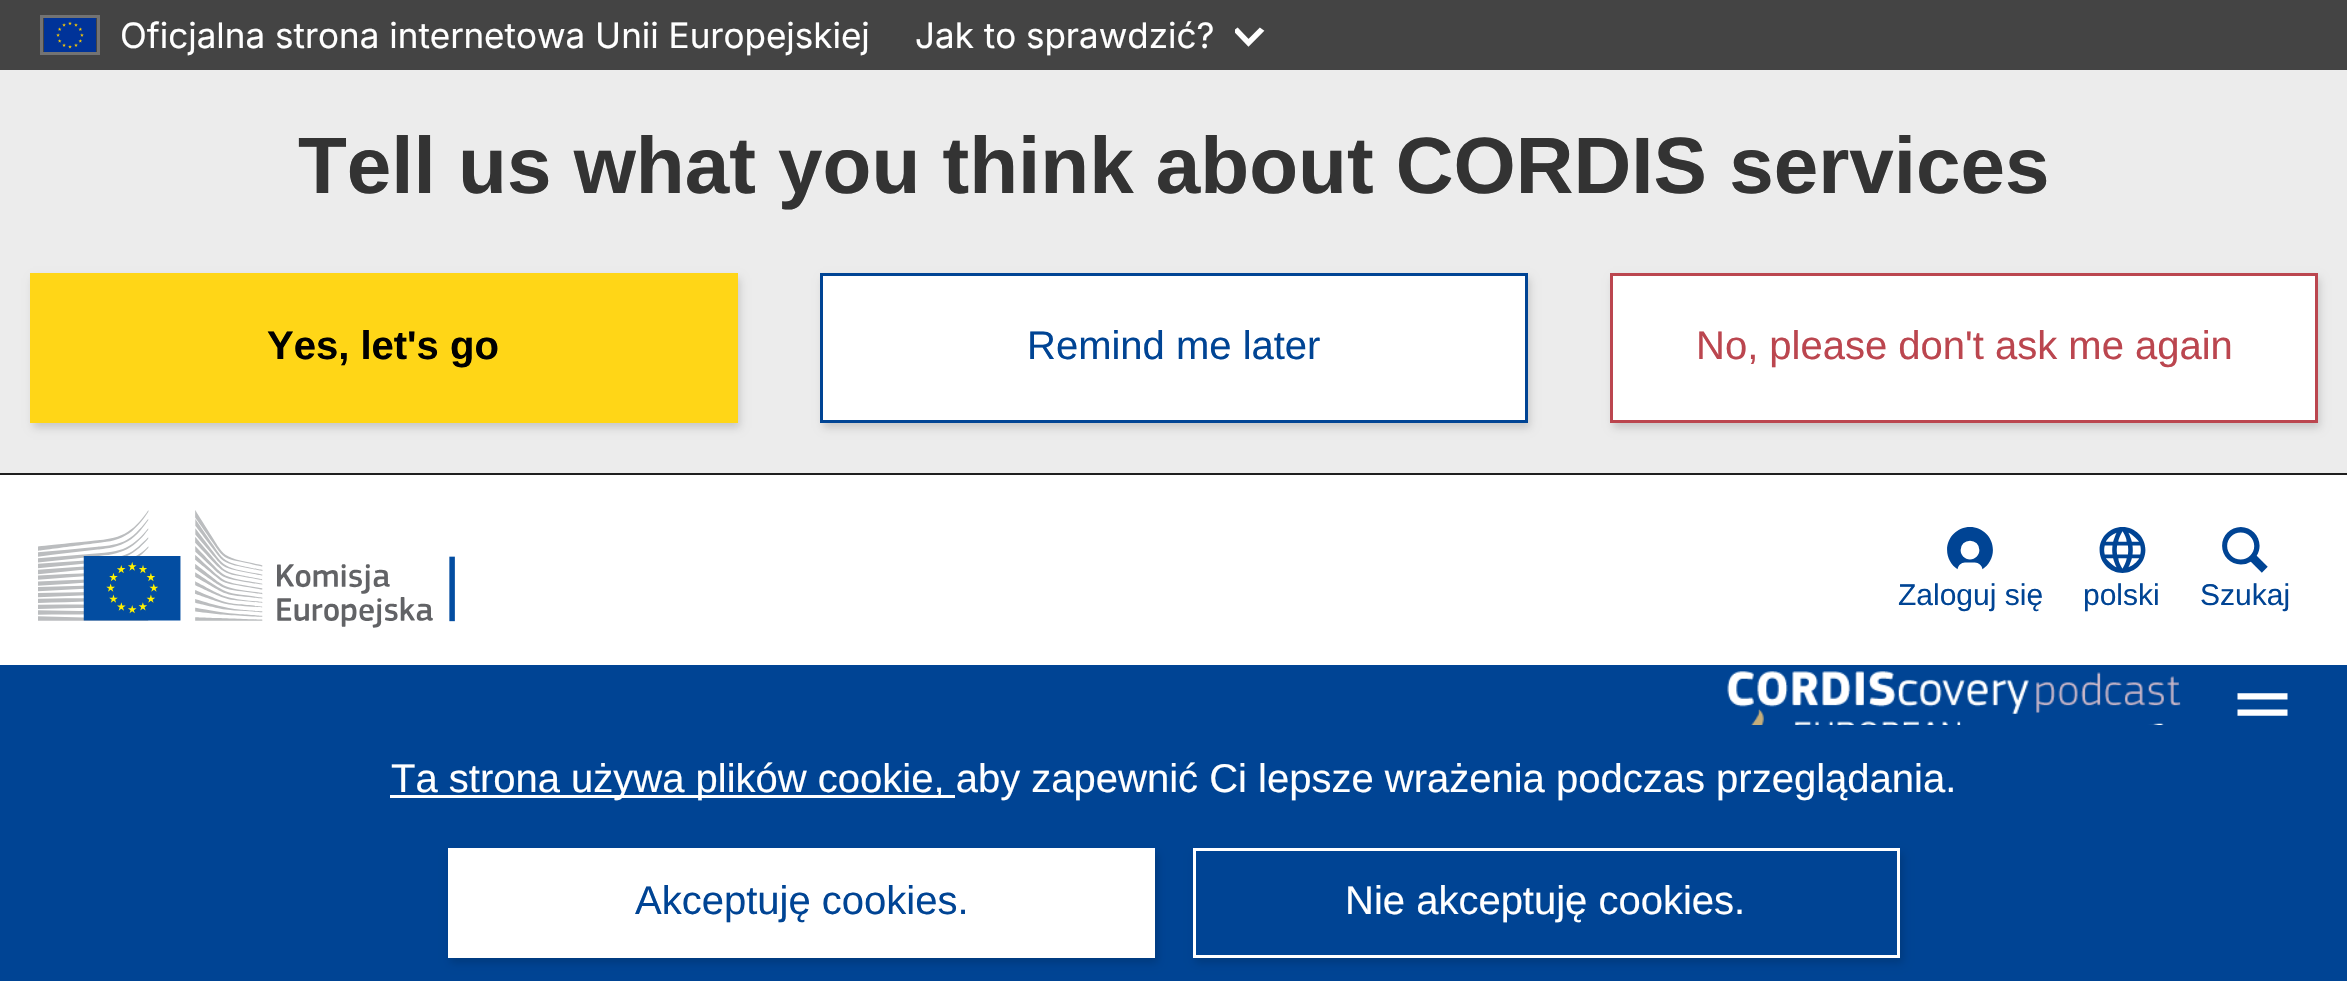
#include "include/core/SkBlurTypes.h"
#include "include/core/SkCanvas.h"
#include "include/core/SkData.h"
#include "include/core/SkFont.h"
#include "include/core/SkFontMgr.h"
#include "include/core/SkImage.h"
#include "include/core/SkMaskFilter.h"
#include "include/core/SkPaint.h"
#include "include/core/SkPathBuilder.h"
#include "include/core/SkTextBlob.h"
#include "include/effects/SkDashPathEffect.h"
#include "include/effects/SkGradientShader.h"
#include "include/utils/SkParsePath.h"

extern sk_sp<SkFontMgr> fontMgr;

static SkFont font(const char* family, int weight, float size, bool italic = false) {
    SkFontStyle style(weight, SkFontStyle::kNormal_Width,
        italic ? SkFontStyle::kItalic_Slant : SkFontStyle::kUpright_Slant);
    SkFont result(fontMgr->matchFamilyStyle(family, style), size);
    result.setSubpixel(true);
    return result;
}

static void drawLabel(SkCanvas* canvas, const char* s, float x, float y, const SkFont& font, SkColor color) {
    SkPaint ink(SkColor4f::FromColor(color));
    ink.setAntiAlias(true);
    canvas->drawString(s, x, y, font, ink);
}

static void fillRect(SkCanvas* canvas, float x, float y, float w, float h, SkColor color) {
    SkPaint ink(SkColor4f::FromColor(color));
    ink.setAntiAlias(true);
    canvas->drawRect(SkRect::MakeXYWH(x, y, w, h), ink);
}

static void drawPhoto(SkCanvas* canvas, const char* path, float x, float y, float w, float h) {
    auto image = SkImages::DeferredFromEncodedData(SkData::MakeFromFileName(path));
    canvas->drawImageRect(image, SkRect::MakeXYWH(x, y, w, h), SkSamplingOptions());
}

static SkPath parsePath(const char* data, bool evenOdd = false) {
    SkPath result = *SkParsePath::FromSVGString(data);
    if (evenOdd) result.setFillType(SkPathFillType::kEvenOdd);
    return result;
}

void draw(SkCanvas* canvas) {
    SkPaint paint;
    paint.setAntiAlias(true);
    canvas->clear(0xFFECECEC);
    fillRect(canvas, 0, 0, 2347, 70, 0xFF444444);
    paint.setStroke(true);
    paint.setStrokeWidth(3);
    paint.setColor(0xFF737373);
    canvas->drawRect(SkRect::MakeXYWH(41.5f, 16.5f, 57, 37), paint);
    drawPhoto(canvas, "assets/img1.png", 44, 18, 52, 34);
    SkFont font1 = font("Inter", 400, 35);
    drawLabel(canvas, "Oficjalna strona internetowa Unii Europejskiej", 120, 48, font1, 0xFFFFFFFF);
    drawLabel(canvas, "Jak to sprawdzić?", 915, 48, font1, 0xFFFFFFFF);
    canvas->save();
    canvas->clipRect(SkRect::MakeXYWH(1235, 20, 30, 30));
    paint.setStrokeWidth(3.1f);
    paint.setColor(0xFFFFFFFF);
    canvas->drawPath(parsePath("M1235.5 31L1237.5 29.5L1248.5 41L1260 29.5L1262 31L1248.5 44.5Z"), paint);
    canvas->restore();
    fillRect(canvas, 0, 473, 2347, 2, 0xFF1F1F1F);
    SkFont font2 = font("Liberation Sans", 700, 80);
    drawLabel(canvas, "Tell us what you think about CORDIS services", 298, 193, font2, 0xFF333333);
    paint.setStroke(false);
    paint.setColor(0x26000000);
    paint.setMaskFilter(SkMaskFilter::MakeBlur(kNormal_SkBlurStyle, 4));
    canvas->drawRect(SkRect::MakeXYWH(33, 278, 707, 150), paint);
    paint.setMaskFilter(nullptr);
    fillRect(canvas, 30, 273, 708, 150, 0xFFFFD617);
    SkFont font3 = font("Liberation Sans", 700, 40);
    drawLabel(canvas, "Yes, let's go", 267, 359, font3, 0xFF000000);
    paint.setMaskFilter(SkMaskFilter::MakeBlur(kNormal_SkBlurStyle, 4));
    canvas->drawRect(SkRect::MakeXYWH(823, 278, 707, 150), paint);
    paint.setMaskFilter(nullptr);
    paint.setColor(0xFFFFFFFF);
    canvas->drawRect(SkRect::MakeXYWH(821.5f, 274.5f, 705, 147), paint);
    paint.setStroke(true);
    paint.setStrokeWidth(3);
    paint.setColor(0xFF004494);
    canvas->drawRect(SkRect::MakeXYWH(821.5f, 274.5f, 705, 147), paint);
    SkFont font4 = font("Liberation Sans", 400, 40);
    drawLabel(canvas, "Remind me later", 1027, 359, font4, 0xFF004494);
    paint.setStroke(false);
    paint.setColor(0x26000000);
    paint.setMaskFilter(SkMaskFilter::MakeBlur(kNormal_SkBlurStyle, 4));
    canvas->drawRect(SkRect::MakeXYWH(1613, 278, 707, 150), paint);
    paint.setMaskFilter(nullptr);
    paint.setColor(0xFFFFFFFF);
    canvas->drawRect(SkRect::MakeXYWH(1611.5f, 274.5f, 705, 147), paint);
    paint.setStroke(true);
    paint.setColor(0xFFBB464F);
    canvas->drawRect(SkRect::MakeXYWH(1611.5f, 274.5f, 705, 147), paint);
    drawLabel(canvas, "No, please don't ask me again", 1696, 359, font4, 0xFFBB464F);
    fillRect(canvas, 0, 475, 2347, 190, 0xFFFFFFFF);
    drawPhoto(canvas, "assets/img2.png", 38, 510, 417, 118);
    drawPhoto(canvas, "assets/img3.png", 1947, 527, 46, 43);
    SkFont font5 = font("Liberation Sans", 400, 30);
    drawLabel(canvas, "Zaloguj się", 1898, 605, font5, 0xFF004494);
    drawPhoto(canvas, "assets/img4.png", 2099, 527, 47, 46);
    drawLabel(canvas, "polski", 2083, 605, font5, 0xFF004494);
    drawPhoto(canvas, "assets/img5.png", 2222, 527, 46, 46);
    drawLabel(canvas, "Szukaj", 2200, 605, font5, 0xFF004494);
    fillRect(canvas, 0, 665, 2347, 316, 0xFF004494);
    drawPhoto(canvas, "assets/img6.png", 1727, 671, 454, 54);
    drawPhoto(canvas, "assets/img7.png", 2237, 693, 51, 23);
    fillRect(canvas, 390, 795, 565, 3, 0xFFFFFFFF);
    drawLabel(canvas, "Ta strona używa plików cookie, aby zapewnić Ci lepsze wrażenia podczas przeglądania.", 391, 792, font4, 0xFFFFFFFF);
    paint.setStroke(false);
    paint.setColor(0x26000000);
    paint.setMaskFilter(SkMaskFilter::MakeBlur(kNormal_SkBlurStyle, 4));
    canvas->drawRect(SkRect::MakeXYWH(450, 853, 708, 110), paint);
    paint.setMaskFilter(nullptr);
    fillRect(canvas, 448, 848, 707, 110, 0xFFFFFFFF);
    drawLabel(canvas, "Akceptuję cookies.", 635, 914, font4, 0xFF004494);
    paint.setMaskFilter(SkMaskFilter::MakeBlur(kNormal_SkBlurStyle, 4));
    canvas->drawRect(SkRect::MakeXYWH(1195, 853, 708, 110), paint);
    paint.setMaskFilter(nullptr);
    paint.setColor(0xFF004494);
    canvas->drawRect(SkRect::MakeXYWH(1194.5f, 849.5f, 704, 107), paint);
    paint.setStroke(true);
    paint.setColor(0xFFFFFFFF);
    canvas->drawRect(SkRect::MakeXYWH(1194.5f, 849.5f, 704, 107), paint);
    drawLabel(canvas, "Nie akceptuję cookies.", 1345, 914, font4, 0xFFFFFFFF);
}
